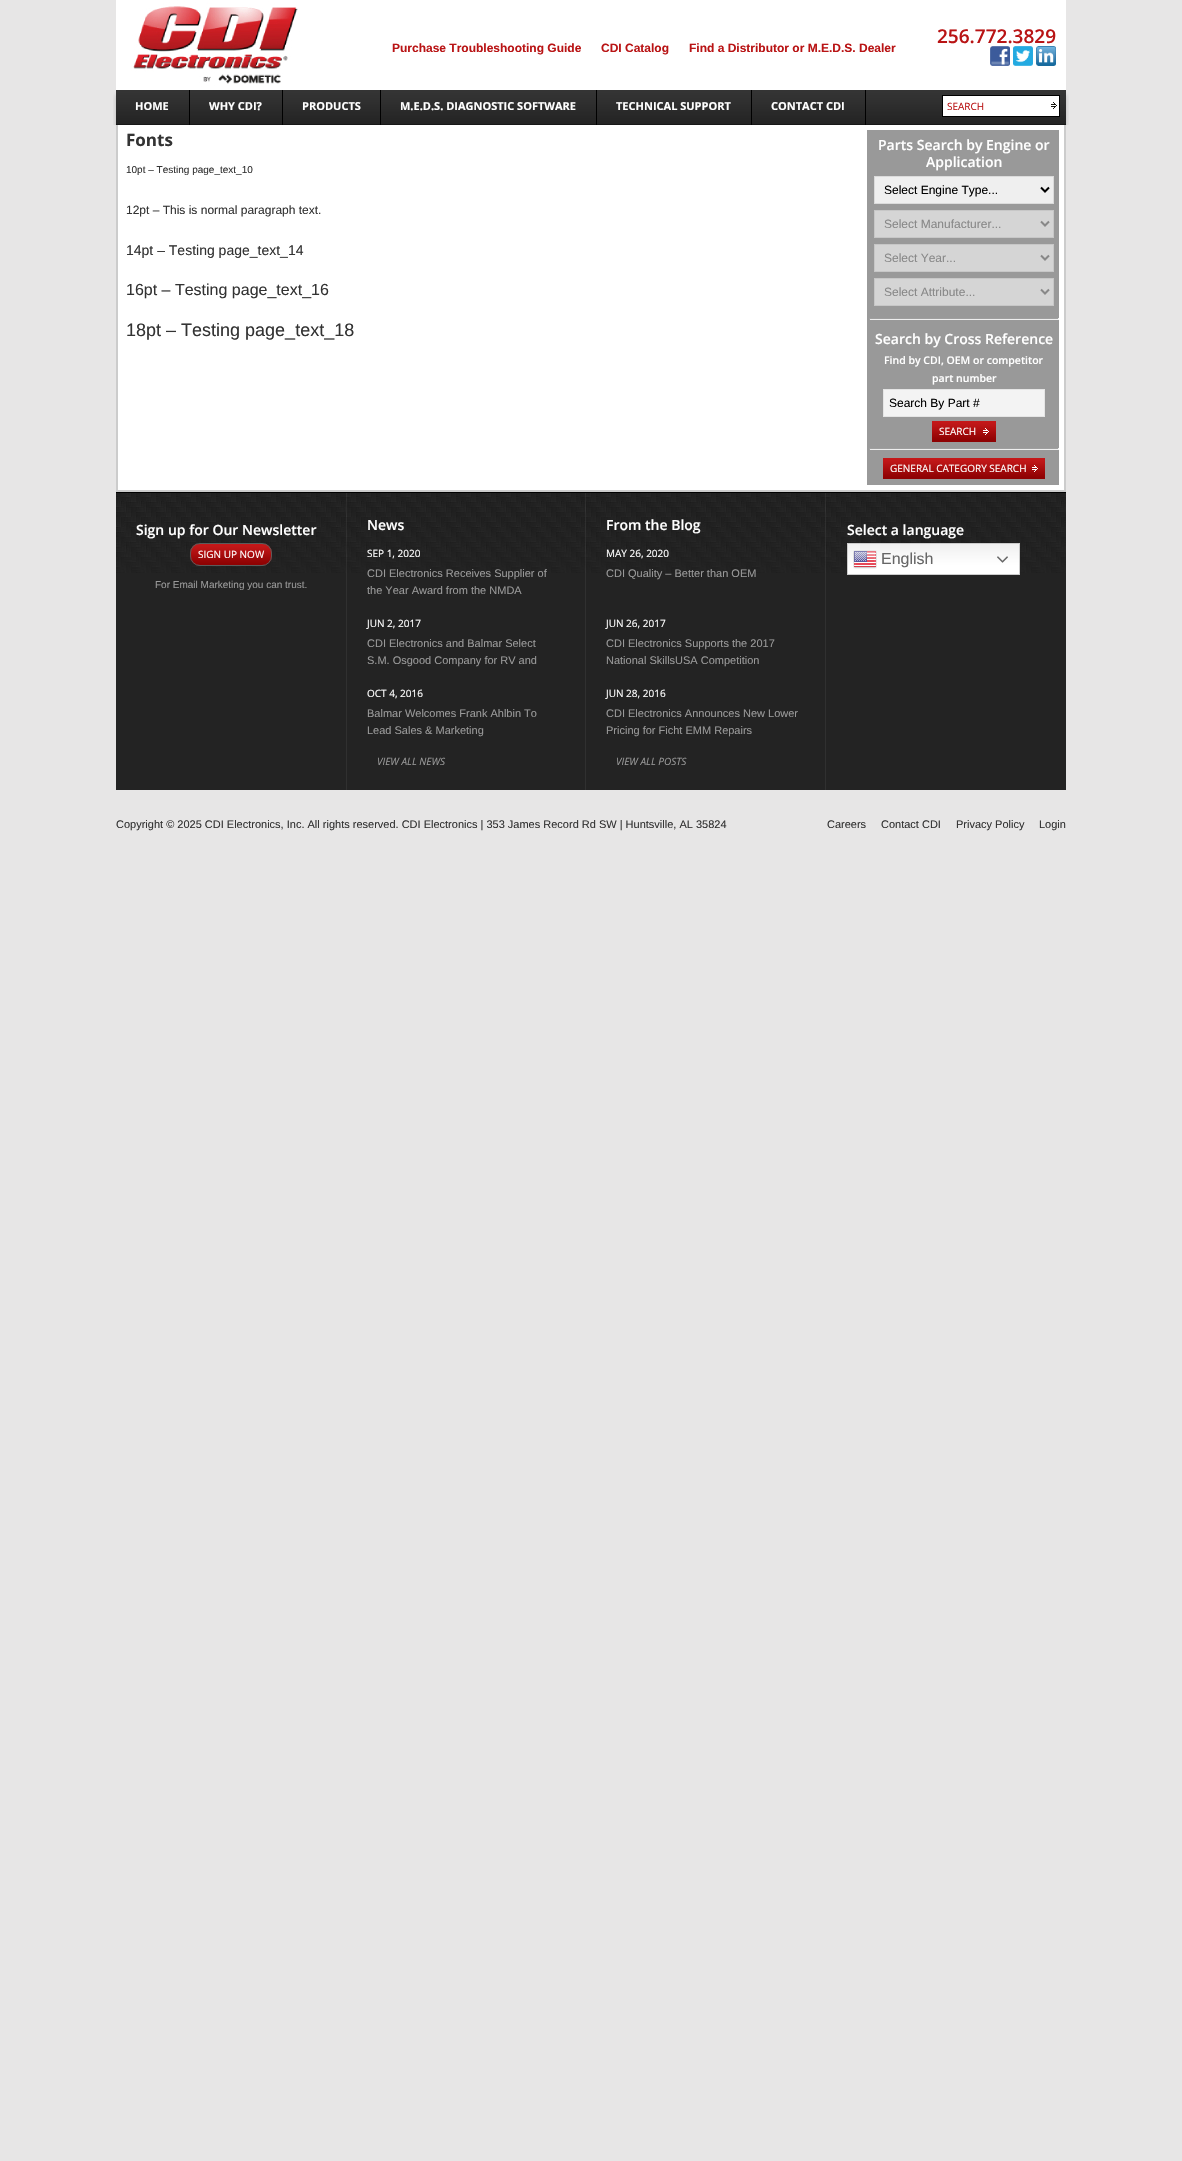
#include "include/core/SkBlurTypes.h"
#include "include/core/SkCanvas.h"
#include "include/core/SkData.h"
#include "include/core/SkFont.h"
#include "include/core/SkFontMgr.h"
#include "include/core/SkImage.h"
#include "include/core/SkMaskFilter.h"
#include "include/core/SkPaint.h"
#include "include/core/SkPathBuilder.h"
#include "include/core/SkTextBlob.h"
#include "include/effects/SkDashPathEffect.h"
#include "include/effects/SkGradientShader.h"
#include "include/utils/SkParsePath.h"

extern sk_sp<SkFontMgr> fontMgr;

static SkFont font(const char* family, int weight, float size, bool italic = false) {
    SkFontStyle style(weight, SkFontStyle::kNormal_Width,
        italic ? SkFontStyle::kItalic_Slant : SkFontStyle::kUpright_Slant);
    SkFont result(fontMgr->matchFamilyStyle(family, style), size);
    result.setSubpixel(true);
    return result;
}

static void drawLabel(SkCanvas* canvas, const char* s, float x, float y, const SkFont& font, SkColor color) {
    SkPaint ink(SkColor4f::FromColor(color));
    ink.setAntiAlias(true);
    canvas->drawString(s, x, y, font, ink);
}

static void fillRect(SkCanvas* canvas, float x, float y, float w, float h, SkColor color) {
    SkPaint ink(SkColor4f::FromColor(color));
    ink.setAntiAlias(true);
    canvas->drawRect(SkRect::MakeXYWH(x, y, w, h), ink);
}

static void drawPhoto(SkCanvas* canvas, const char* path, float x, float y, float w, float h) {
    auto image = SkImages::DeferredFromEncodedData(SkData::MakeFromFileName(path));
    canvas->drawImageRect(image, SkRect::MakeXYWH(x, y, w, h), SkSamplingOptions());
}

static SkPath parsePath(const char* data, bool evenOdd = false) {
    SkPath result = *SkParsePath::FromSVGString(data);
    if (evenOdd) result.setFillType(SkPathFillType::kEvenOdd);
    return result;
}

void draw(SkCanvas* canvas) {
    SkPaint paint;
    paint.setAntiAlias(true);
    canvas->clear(0xFFE7E6E6);
    drawPhoto(canvas, "assets/img1.png", 113, 90, 956, 35);
    drawPhoto(canvas, "assets/img2.png", 116, 0, 950, 90);
    SkFont font1 = font("Open Sans", 600, 19);
    drawLabel(canvas, "256.772.3829", 937, 43, font1, 0xFFB91415);
    drawPhoto(canvas, "assets/img3.png", 990, 46, 20, 20);
    drawPhoto(canvas, "assets/img4.png", 1013, 46, 20, 20);
    drawPhoto(canvas, "assets/img5.png", 1036, 46, 20, 20);
    SkFont font2 = font("Liberation Sans", 700, 12);
    drawLabel(canvas, "Purchase Troubleshooting Guide", 392, 52, font2, 0xFFB91415);
    drawLabel(canvas, "CDI Catalog", 601, 52, font2, 0xFFB91415);
    drawLabel(canvas, "Find a Distributor or M.E.D.S. Dealer", 689, 52, font2, 0xFFB91415);
    fillRect(canvas, 189, 90, 1, 35, 0xFF000000);
    SkFont font3 = font("Open Sans", 700, 11);
    drawLabel(canvas, "HOME", 135, 110, font3, 0xFFFFFFFF);
    fillRect(canvas, 282, 90, 1, 35, 0xFF000000);
    drawLabel(canvas, "WHY CDI?", 209, 110, font3, 0xFFFFFFFF);
    fillRect(canvas, 380, 90, 1, 35, 0xFF000000);
    drawLabel(canvas, "PRODUCTS", 302, 110, font3, 0xFFFFFFFF);
    fillRect(canvas, 596, 90, 1, 35, 0xFF000000);
    drawLabel(canvas, "M.E.D.S. DIAGNOSTIC SOFTWARE", 400, 110, font3, 0xFFFFFFFF);
    fillRect(canvas, 751, 90, 1, 35, 0xFF000000);
    drawLabel(canvas, "TECHNICAL SUPPORT", 616, 110, font3, 0xFFFFFFFF);
    fillRect(canvas, 865, 90, 1, 35, 0xFF000000);
    drawLabel(canvas, "CONTACT CDI", 771, 110, font3, 0xFFFFFFFF);
    paint.setStroke(true);
    paint.setStrokeWidth(1);
    paint.setColor(0xFF000000);
    canvas->drawRect(SkRect::MakeXYWH(942.5f, 95.5f, 117, 21), paint);
    fillRect(canvas, 943, 96, 102, 20, 0xFFFFFFFF);
    SkFont font4 = font("Open Sans", 400, 10);
    drawLabel(canvas, "SEARCH", 947, 110, font4, 0xFFB91415);
    drawPhoto(canvas, "assets/img6.png", 1045, 96, 14, 20);
    fillRect(canvas, 118, 125, 946, 365, 0xFFFFFFFF);
    fillRect(canvas, 1064, 125, 2, 367, 0xFFCCCCCC);
    fillRect(canvas, 116, 490, 950, 2, 0xFFCCCCCC);
    fillRect(canvas, 116, 125, 2, 367, 0xFFCCCCCC);
    SkFont font5 = font("Open Sans", 700, 17);
    drawLabel(canvas, "Fonts", 126, 146, font5, 0xFF333333);
    SkFont font6 = font("Liberation Sans", 400, 10);
    drawLabel(canvas, "10pt – Testing page_text_10", 126, 173, font6, 0xFF333333);
    SkFont font7 = font("Liberation Sans", 400, 12);
    drawLabel(canvas, "12pt – This is normal paragraph text.", 126, 214, font7, 0xFF333333);
    SkFont font8 = font("Liberation Sans", 400, 14);
    drawLabel(canvas, "14pt – Testing page_text_14", 126, 255, font8, 0xFF333333);
    SkFont font9 = font("Liberation Sans", 400, 16);
    drawLabel(canvas, "16pt – Testing page_text_16", 126, 295, font9, 0xFF333333);
    SkFont font10 = font("Liberation Sans", 400, 18);
    drawLabel(canvas, "18pt – Testing page_text_18", 126, 336, font10, 0xFF333333);
    fillRect(canvas, 867, 130, 192, 355, 0xFF999999);
    SkFont font11 = font("Open Sans", 600, 14);
    drawLabel(canvas, "Parts Search by Engine or", 878, 150, font11, 0xFFFFFFFF);
    drawLabel(canvas, "Application", 926, 167, font11, 0xFFFFFFFF);
    paint.setStroke(false);
    paint.setColor(0xFFEFEFEF);
    canvas->drawRect(SkRect::MakeXYWH(874.5f, 176.5f, 179, 27), paint);
    paint.setStroke(true);
    paint.setColor(0xFFDBDBDB);
    canvas->drawRect(SkRect::MakeXYWH(874.5f, 176.5f, 179, 27), paint);
    paint.setStrokeWidth(2);
    paint.setColor(0xFF000000);
    canvas->drawPath(parsePath("M1041 187.5L1045 191.5L1049 187.5"), paint);
    drawLabel(canvas, "Select Engine Type...", 884, 194, font7, 0xFF000000);
    paint.setStroke(false);
    paint.setColor(0xFFD5D5D5);
    canvas->drawRect(SkRect::MakeXYWH(874.5f, 210.5f, 179, 27), paint);
    paint.setStroke(true);
    paint.setStrokeWidth(1);
    paint.setColor(0xFFC7C7C7);
    canvas->drawRect(SkRect::MakeXYWH(874.5f, 210.5f, 179, 27), paint);
    paint.setStrokeWidth(2);
    paint.setColor(0xFF888888);
    canvas->drawPath(parsePath("M1041 221.5L1045 225.5L1049 221.5"), paint);
    drawLabel(canvas, "Select Manufacturer...", 884, 228, font7, 0xFF888888);
    paint.setStroke(false);
    paint.setColor(0xFFD5D5D5);
    canvas->drawRect(SkRect::MakeXYWH(874.5f, 244.5f, 179, 27), paint);
    paint.setStroke(true);
    paint.setStrokeWidth(1);
    paint.setColor(0xFFC7C7C7);
    canvas->drawRect(SkRect::MakeXYWH(874.5f, 244.5f, 179, 27), paint);
    paint.setStrokeWidth(2);
    paint.setColor(0xFF888888);
    canvas->drawPath(parsePath("M1041 255.5L1045 259.5L1049 255.5"), paint);
    drawLabel(canvas, "Select Year...", 884, 262, font7, 0xFF888888);
    paint.setStroke(false);
    paint.setColor(0xFFD5D5D5);
    canvas->drawRect(SkRect::MakeXYWH(874.5f, 278.5f, 179, 27), paint);
    paint.setStroke(true);
    paint.setStrokeWidth(1);
    paint.setColor(0xFFC7C7C7);
    canvas->drawRect(SkRect::MakeXYWH(874.5f, 278.5f, 179, 27), paint);
    paint.setStrokeWidth(2);
    paint.setColor(0xFF888888);
    canvas->drawPath(parsePath("M1041 289.5L1045 293.5L1049 289.5"), paint);
    drawLabel(canvas, "Select Attribute...", 884, 296, font7, 0xFF888888);
    fillRect(canvas, 869, 318, 190, 1, 0xFF9F9F9F);
    fillRect(canvas, 1058, 318, 1, 2, 0xFFEEEEEE);
    fillRect(canvas, 869, 319, 190, 1, 0xFFEEEEEE);
    fillRect(canvas, 869, 318, 1, 2, 0xFF9F9F9F);
    drawLabel(canvas, "Search by Cross Reference", 875, 344, font11, 0xFFFFFFFF);
    SkFont font12 = font("Open Sans", 600, 10.5f);
    drawLabel(canvas, "Find by CDI, OEM or competitor", 884, 364, font12, 0xFFFFFFFF);
    drawLabel(canvas, "part number", 932, 382, font12, 0xFFFFFFFF);
    paint.setStroke(false);
    paint.setColor(0xFFF3F3F3);
    canvas->drawRect(SkRect::MakeXYWH(883.5f, 389.5f, 161, 27), paint);
    paint.setStroke(true);
    paint.setStrokeWidth(1);
    paint.setColor(0xFFE5E5E5);
    canvas->drawRect(SkRect::MakeXYWH(883.5f, 389.5f, 161, 27), paint);
    drawLabel(canvas, "Search By Part #", 889, 407, font7, 0xFF000000);
    drawPhoto(canvas, "assets/img7.png", 932, 421, 64, 21);
    drawPhoto(canvas, "assets/img8.png", 983, 428, 6, 7);
    drawLabel(canvas, "SEARCH", 939, 435, font4, 0xFFFFFFFF);
    fillRect(canvas, 869, 448, 190, 1, 0xFF9F9F9F);
    fillRect(canvas, 1058, 448, 1, 2, 0xFFEEEEEE);
    fillRect(canvas, 869, 449, 190, 1, 0xFFEEEEEE);
    fillRect(canvas, 869, 448, 1, 2, 0xFF9F9F9F);
    drawPhoto(canvas, "assets/img9.png", 883, 458, 162, 21);
    drawPhoto(canvas, "assets/img8.png", 1032, 465, 6, 7);
    drawLabel(canvas, "GENERAL CATEGORY SEARCH", 890, 472, font4, 0xFFFFFFFF);
    fillRect(canvas, 116, 573, 950, 217, 0xFF232323);
    drawPhoto(canvas, "assets/img10.png", 116, 493, 950, 80);
    fillRect(canvas, 116, 492, 950, 1, 0xFF000000);
    fillRect(canvas, 346, 493, 1, 297, 0x0FFFFFFF);
    fillRect(canvas, 585, 493, 1, 297, 0x0FFFFFFF);
    fillRect(canvas, 825, 493, 1, 297, 0x0FFFFFFF);
    drawLabel(canvas, "Sign up for Our Newsletter", 136, 535, font11, 0xFFFFFFFF);
    drawPhoto(canvas, "assets/img11.png", 190, 544, 82, 22);
    paint.setColor(0xFF5B5B5B);
    canvas->drawRoundRect(SkRect::MakeXYWH(190.5f, 543.5f, 81, 22), 9.5f, 9.5f, paint);
    drawLabel(canvas, "SIGN UP NOW", 198, 558, font4, 0xFFFFFFFF);
    drawLabel(canvas, "For Email Marketing you can trust.", 155, 588, font6, 0xFF999999);
    drawLabel(canvas, "News", 367, 530, font11, 0xFFFFFFFF);
    drawLabel(canvas, "SEP 1, 2020", 367, 557, font4, 0xFFFFFFFF);
    SkFont font13 = font("Liberation Sans", 400, 11);
    drawLabel(canvas, "CDI Electronics Receives Supplier of", 367, 577, font13, 0xFF999999);
    drawLabel(canvas, "the Year Award from the NMDA", 367, 594, font13, 0xFF999999);
    drawLabel(canvas, "JUN 2, 2017", 367, 627, font4, 0xFFFFFFFF);
    drawLabel(canvas, "CDI Electronics and Balmar Select", 367, 647, font13, 0xFF999999);
    drawLabel(canvas, "S.M. Osgood Company for RV and", 367, 664, font13, 0xFF999999);
    drawLabel(canvas, "OCT 4, 2016", 367, 697, font4, 0xFFFFFFFF);
    drawLabel(canvas, "Balmar Welcomes Frank Ahlbin To", 367, 717, font13, 0xFF999999);
    drawLabel(canvas, "Lead Sales & Marketing", 367, 734, font13, 0xFF999999);
    SkFont font14 = font("Open Sans", 400, 10, true);
    drawLabel(canvas, "VIEW ALL NEWS", 377, 765, font14, 0xFF999999);
    drawLabel(canvas, "From the Blog", 606, 530, font11, 0xFFFFFFFF);
    drawLabel(canvas, "MAY 26, 2020", 606, 557, font4, 0xFFFFFFFF);
    drawLabel(canvas, "CDI Quality – Better than OEM", 606, 577, font13, 0xFF999999);
    drawLabel(canvas, "JUN 26, 2017", 606, 627, font4, 0xFFFFFFFF);
    drawLabel(canvas, "CDI Electronics Supports the 2017", 606, 647, font13, 0xFF999999);
    drawLabel(canvas, "National SkillsUSA Competition", 606, 664, font13, 0xFF999999);
    drawLabel(canvas, "JUN 28, 2016", 606, 697, font4, 0xFFFFFFFF);
    drawLabel(canvas, "CDI Electronics Announces New Lower", 606, 717, font13, 0xFF999999);
    drawLabel(canvas, "Pricing for Ficht EMM Repairs", 606, 734, font13, 0xFF999999);
    drawLabel(canvas, "VIEW ALL POSTS", 616, 765, font14, 0xFF999999);
    drawLabel(canvas, "Select a language", 847, 535, font11, 0xFFFFFFFF);
    paint.setStroke(false);
    {
        const SkColor colors[] = {0xFFEFEFEF, 0xFFFFFFFF};
        const float stops[] = {0, 0.7f};
        const SkPoint ends[] = {{934, 543}, {934, 575}};
        paint.setShader(SkGradientShader::MakeLinear(ends, colors, stops, 2, SkTileMode::kClamp));
        paint.setAlpha(255);
    }
    canvas->drawRect(SkRect::MakeXYWH(848, 544, 171, 30), paint);
    paint.setStroke(true);
    paint.setShader(nullptr);
    paint.setColor(0xFFCCCCCC);
    canvas->drawRect(SkRect::MakeXYWH(847.5f, 543.5f, 172, 31), paint);
    drawPhoto(canvas, "assets/img12.png", 853, 550, 24, 19);
    drawLabel(canvas, "English", 881, 564, font9, 0xFF666666);
    drawPhoto(canvas, "assets/img13.png", 997, 556, 11, 7);
    drawLabel(canvas, "Copyright © 2025 CDI Electronics, Inc. All rights reserved. CDI Electronics | 353 James Record Rd SW | Huntsville, AL 35824", 116, 828, font13, 0xFF333333);
    drawLabel(canvas, "Careers", 827, 828, font13, 0xFF333333);
    drawLabel(canvas, "Contact CDI", 881, 828, font13, 0xFF333333);
    drawLabel(canvas, "Privacy Policy", 956, 828, font13, 0xFF333333);
    drawLabel(canvas, "Login", 1039, 828, font13, 0xFF333333);
}
